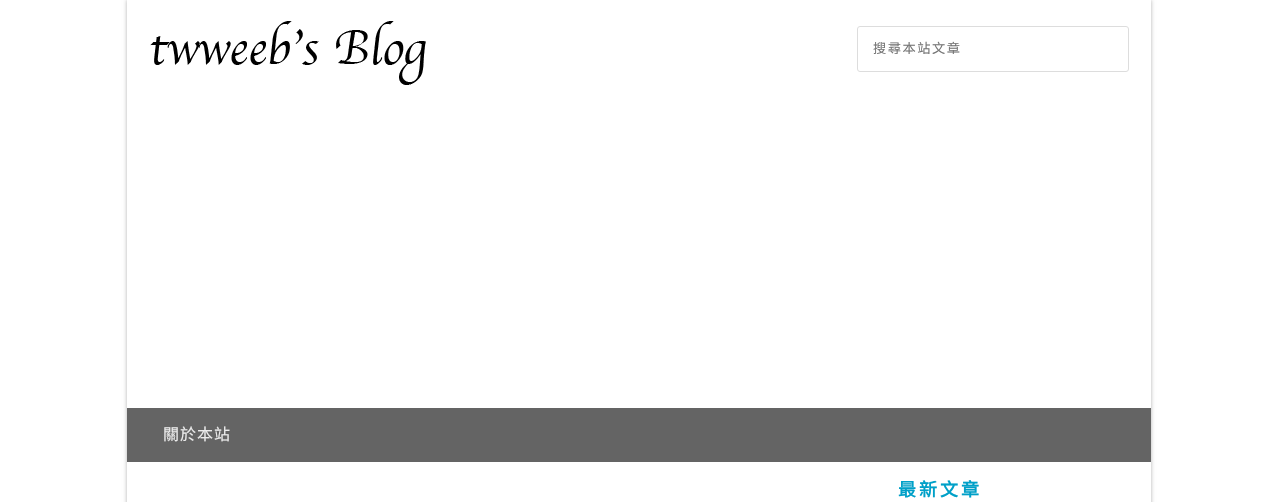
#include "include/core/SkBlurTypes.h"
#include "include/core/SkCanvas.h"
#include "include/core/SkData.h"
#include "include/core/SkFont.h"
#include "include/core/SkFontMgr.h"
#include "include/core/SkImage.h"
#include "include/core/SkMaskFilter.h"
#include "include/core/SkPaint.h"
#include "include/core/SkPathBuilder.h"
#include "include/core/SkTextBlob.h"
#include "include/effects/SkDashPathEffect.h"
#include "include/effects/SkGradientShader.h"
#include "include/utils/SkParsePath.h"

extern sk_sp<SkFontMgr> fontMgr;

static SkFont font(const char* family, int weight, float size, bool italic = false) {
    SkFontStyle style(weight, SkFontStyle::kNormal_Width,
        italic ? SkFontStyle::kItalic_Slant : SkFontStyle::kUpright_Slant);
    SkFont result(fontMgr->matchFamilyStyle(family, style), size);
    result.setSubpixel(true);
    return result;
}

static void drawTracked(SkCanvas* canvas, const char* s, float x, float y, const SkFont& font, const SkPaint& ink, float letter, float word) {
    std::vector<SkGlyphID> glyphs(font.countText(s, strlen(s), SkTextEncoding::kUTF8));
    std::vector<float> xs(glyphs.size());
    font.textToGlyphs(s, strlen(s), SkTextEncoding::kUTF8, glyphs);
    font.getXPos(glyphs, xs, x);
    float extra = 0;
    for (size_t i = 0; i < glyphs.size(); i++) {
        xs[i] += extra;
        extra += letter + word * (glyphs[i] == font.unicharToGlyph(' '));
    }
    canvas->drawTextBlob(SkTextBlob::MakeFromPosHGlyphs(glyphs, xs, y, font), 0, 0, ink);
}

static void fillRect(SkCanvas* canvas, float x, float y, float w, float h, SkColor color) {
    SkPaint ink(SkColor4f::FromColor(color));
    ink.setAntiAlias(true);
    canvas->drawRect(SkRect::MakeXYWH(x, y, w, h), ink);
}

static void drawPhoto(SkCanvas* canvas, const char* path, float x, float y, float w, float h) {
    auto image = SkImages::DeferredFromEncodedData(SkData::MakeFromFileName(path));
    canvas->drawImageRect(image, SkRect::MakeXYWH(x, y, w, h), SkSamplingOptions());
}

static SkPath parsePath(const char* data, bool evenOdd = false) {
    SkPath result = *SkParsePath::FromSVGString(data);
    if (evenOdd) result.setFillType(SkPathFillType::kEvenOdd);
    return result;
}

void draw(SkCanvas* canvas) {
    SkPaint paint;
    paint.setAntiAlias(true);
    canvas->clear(0xFFFFFFFF);
    canvas->save();
    canvas->clipPath(parsePath("M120 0H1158V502H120ZM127 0H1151V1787H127Z", true), true);
    paint.setColor(0x4D000000);
    paint.setMaskFilter(SkMaskFilter::MakeBlur(kNormal_SkBlurStyle, 2));
    canvas->drawRect(SkRect::MakeXYWH(127, 0, 1024, 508), paint);
    paint.setMaskFilter(nullptr);
    canvas->restore();
    drawPhoto(canvas, "assets/img1.png", 150, 21, 276, 64);
    paint.setStroke(true);
    paint.setStrokeWidth(1);
    paint.setColor(0xFFDDDDDD);
    canvas->drawRoundRect(SkRect::MakeXYWH(857.5f, 26.5f, 271, 45), 2.5f, 2.5f, paint);
    SkFont font1 = font("Noto Sans CJK TC", 400, 13.25f);
    paint.setStroke(false);
    paint.setColor(0xFF757575);
    drawTracked(canvas, "搜尋本站文章", 873, 53, font1, paint, 1.5f, 0);
    fillRect(canvas, 127, 408, 1024, 54, 0xFF646464);
    SkFont font2 = font("Noto Sans CJK TC", 400, 16);
    paint.setColor(0xFFEBEBEB);
    drawTracked(canvas, "關於本站", 163, 440, font2, paint, 1, 0);
    SkFont font3 = font("Noto Sans CJK TC", 700, 18);
    paint.setColor(0xFF00A0C8);
    drawTracked(canvas, "最新文章", 898, 496, font3, paint, 3, 0);
}
